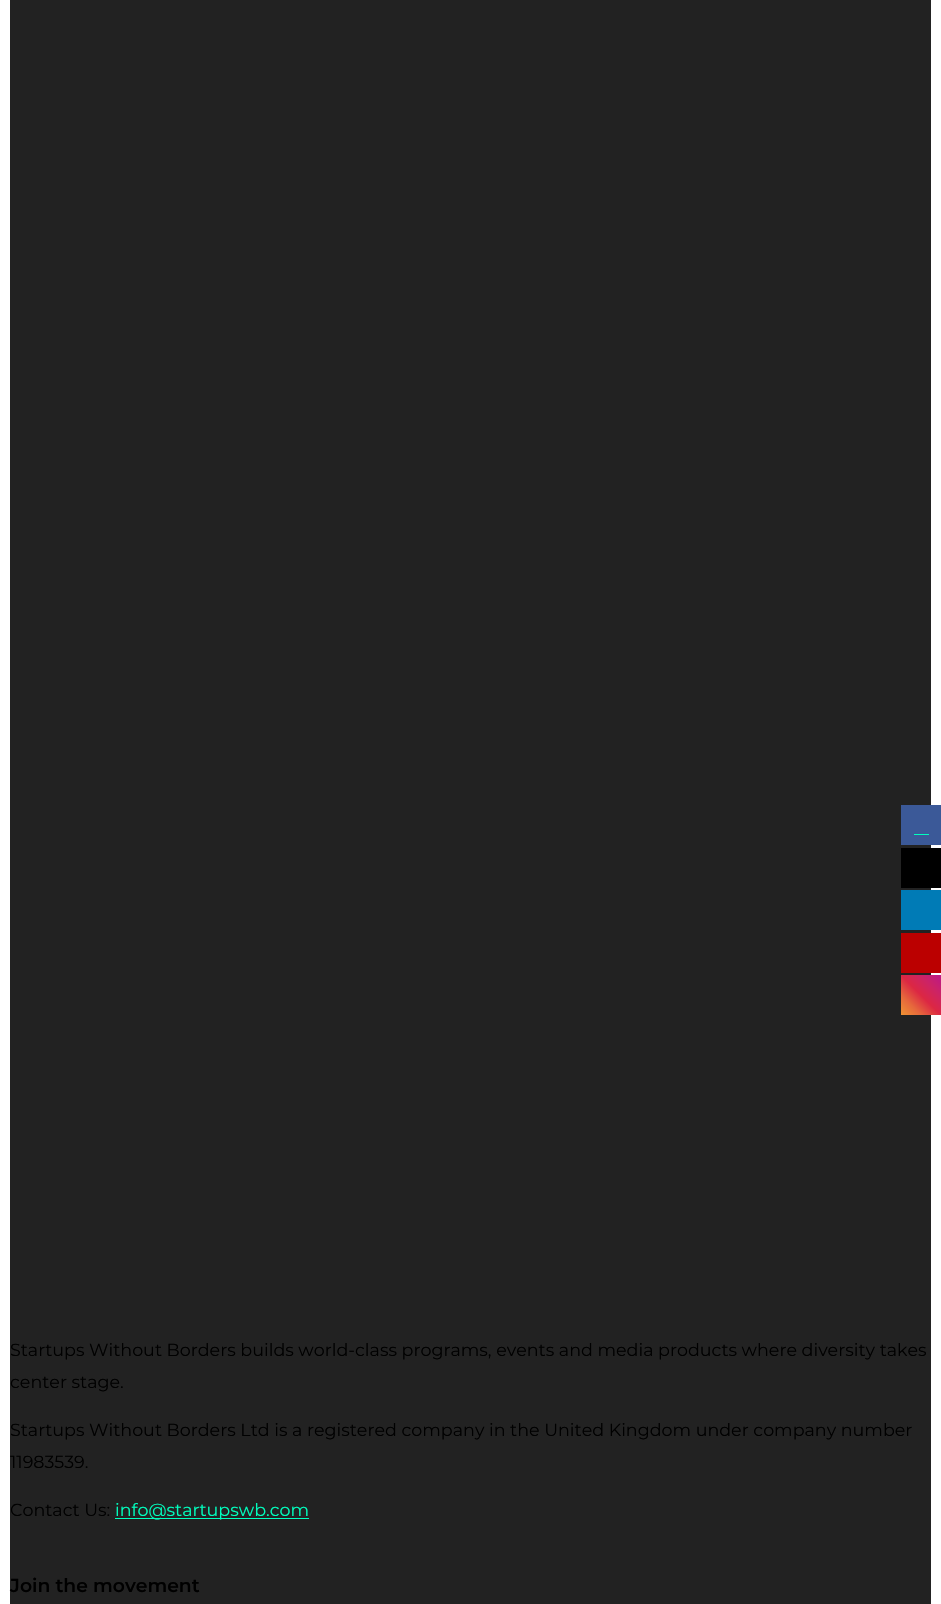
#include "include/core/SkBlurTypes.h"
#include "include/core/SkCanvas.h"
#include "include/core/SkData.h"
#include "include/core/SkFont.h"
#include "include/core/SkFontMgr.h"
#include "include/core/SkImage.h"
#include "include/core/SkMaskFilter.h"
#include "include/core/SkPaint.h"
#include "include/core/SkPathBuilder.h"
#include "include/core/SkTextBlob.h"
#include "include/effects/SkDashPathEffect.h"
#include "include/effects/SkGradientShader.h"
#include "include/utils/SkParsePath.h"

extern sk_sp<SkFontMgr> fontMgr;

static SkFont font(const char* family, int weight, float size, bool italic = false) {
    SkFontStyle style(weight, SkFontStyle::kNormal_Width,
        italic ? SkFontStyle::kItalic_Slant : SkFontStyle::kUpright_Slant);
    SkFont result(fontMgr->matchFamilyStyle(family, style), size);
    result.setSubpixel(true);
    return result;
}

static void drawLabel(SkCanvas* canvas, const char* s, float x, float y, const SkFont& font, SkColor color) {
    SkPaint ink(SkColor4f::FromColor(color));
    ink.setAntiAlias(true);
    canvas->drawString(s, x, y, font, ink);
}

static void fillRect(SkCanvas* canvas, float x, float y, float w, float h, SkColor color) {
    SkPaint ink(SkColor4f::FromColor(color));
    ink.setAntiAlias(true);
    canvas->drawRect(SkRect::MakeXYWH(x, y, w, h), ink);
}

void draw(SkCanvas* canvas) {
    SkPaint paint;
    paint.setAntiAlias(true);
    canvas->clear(0xFFFFFFFF);
    fillRect(canvas, 10, 0, 921, 1604, 0xFF222222);
    fillRect(canvas, 901, 805, 40, 40, 0xFF3B5998);
    fillRect(canvas, 914, 834, 15, 1, 0xFF00FFBE);
    fillRect(canvas, 901, 848, 40, 40, 0xFF000000);
    fillRect(canvas, 901, 890, 40, 40, 0xFF007BB6);
    fillRect(canvas, 901, 933, 40, 40, 0xFFBB0000);
    {
        const SkColor colors[] = {0xFFF09433, 0xFFE6683C, 0xFFDC2743, 0xFFCC2366, 0xFFBC1888};
        const float stops[] = {0, 0.25f, 0.5f, 0.75f, 1};
        const SkPoint ends[] = {{901, 1015}, {941, 975}};
        paint.setShader(SkGradientShader::MakeLinear(ends, colors, stops, 5, SkTileMode::kClamp));
        paint.setAlpha(255);
    }
    canvas->drawRect(SkRect::MakeXYWH(901, 975, 40, 40), paint);
    SkFont font1 = font("Montserrat", 400, 17.5f);
    drawLabel(canvas, "Startups Without Borders builds world-class programs, events and media products where diversity takes", 10, 1356, font1, 0xFF000000);
    drawLabel(canvas, "center stage.", 10, 1388, font1, 0xFF000000);
    drawLabel(canvas, "Startups Without Borders Ltd is a registered company in the United Kingdom under company number", 10, 1436, font1, 0xFF000000);
    drawLabel(canvas, "11983539.", 10, 1468, font1, 0xFF000000);
    drawLabel(canvas, "Contact Us:", 10, 1516, font1, 0xFF000000);
    fillRect(canvas, 115, 1518, 194, 1, 0xFF00FFBE);
    drawLabel(canvas, "info@startupswb.com", 115, 1516, font1, 0xFF00FFBE);
    SkFont font2 = font("Montserrat", 600, 18.75f);
    drawLabel(canvas, "Join the movement", 10, 1592, font2, 0xFF000000);
}
